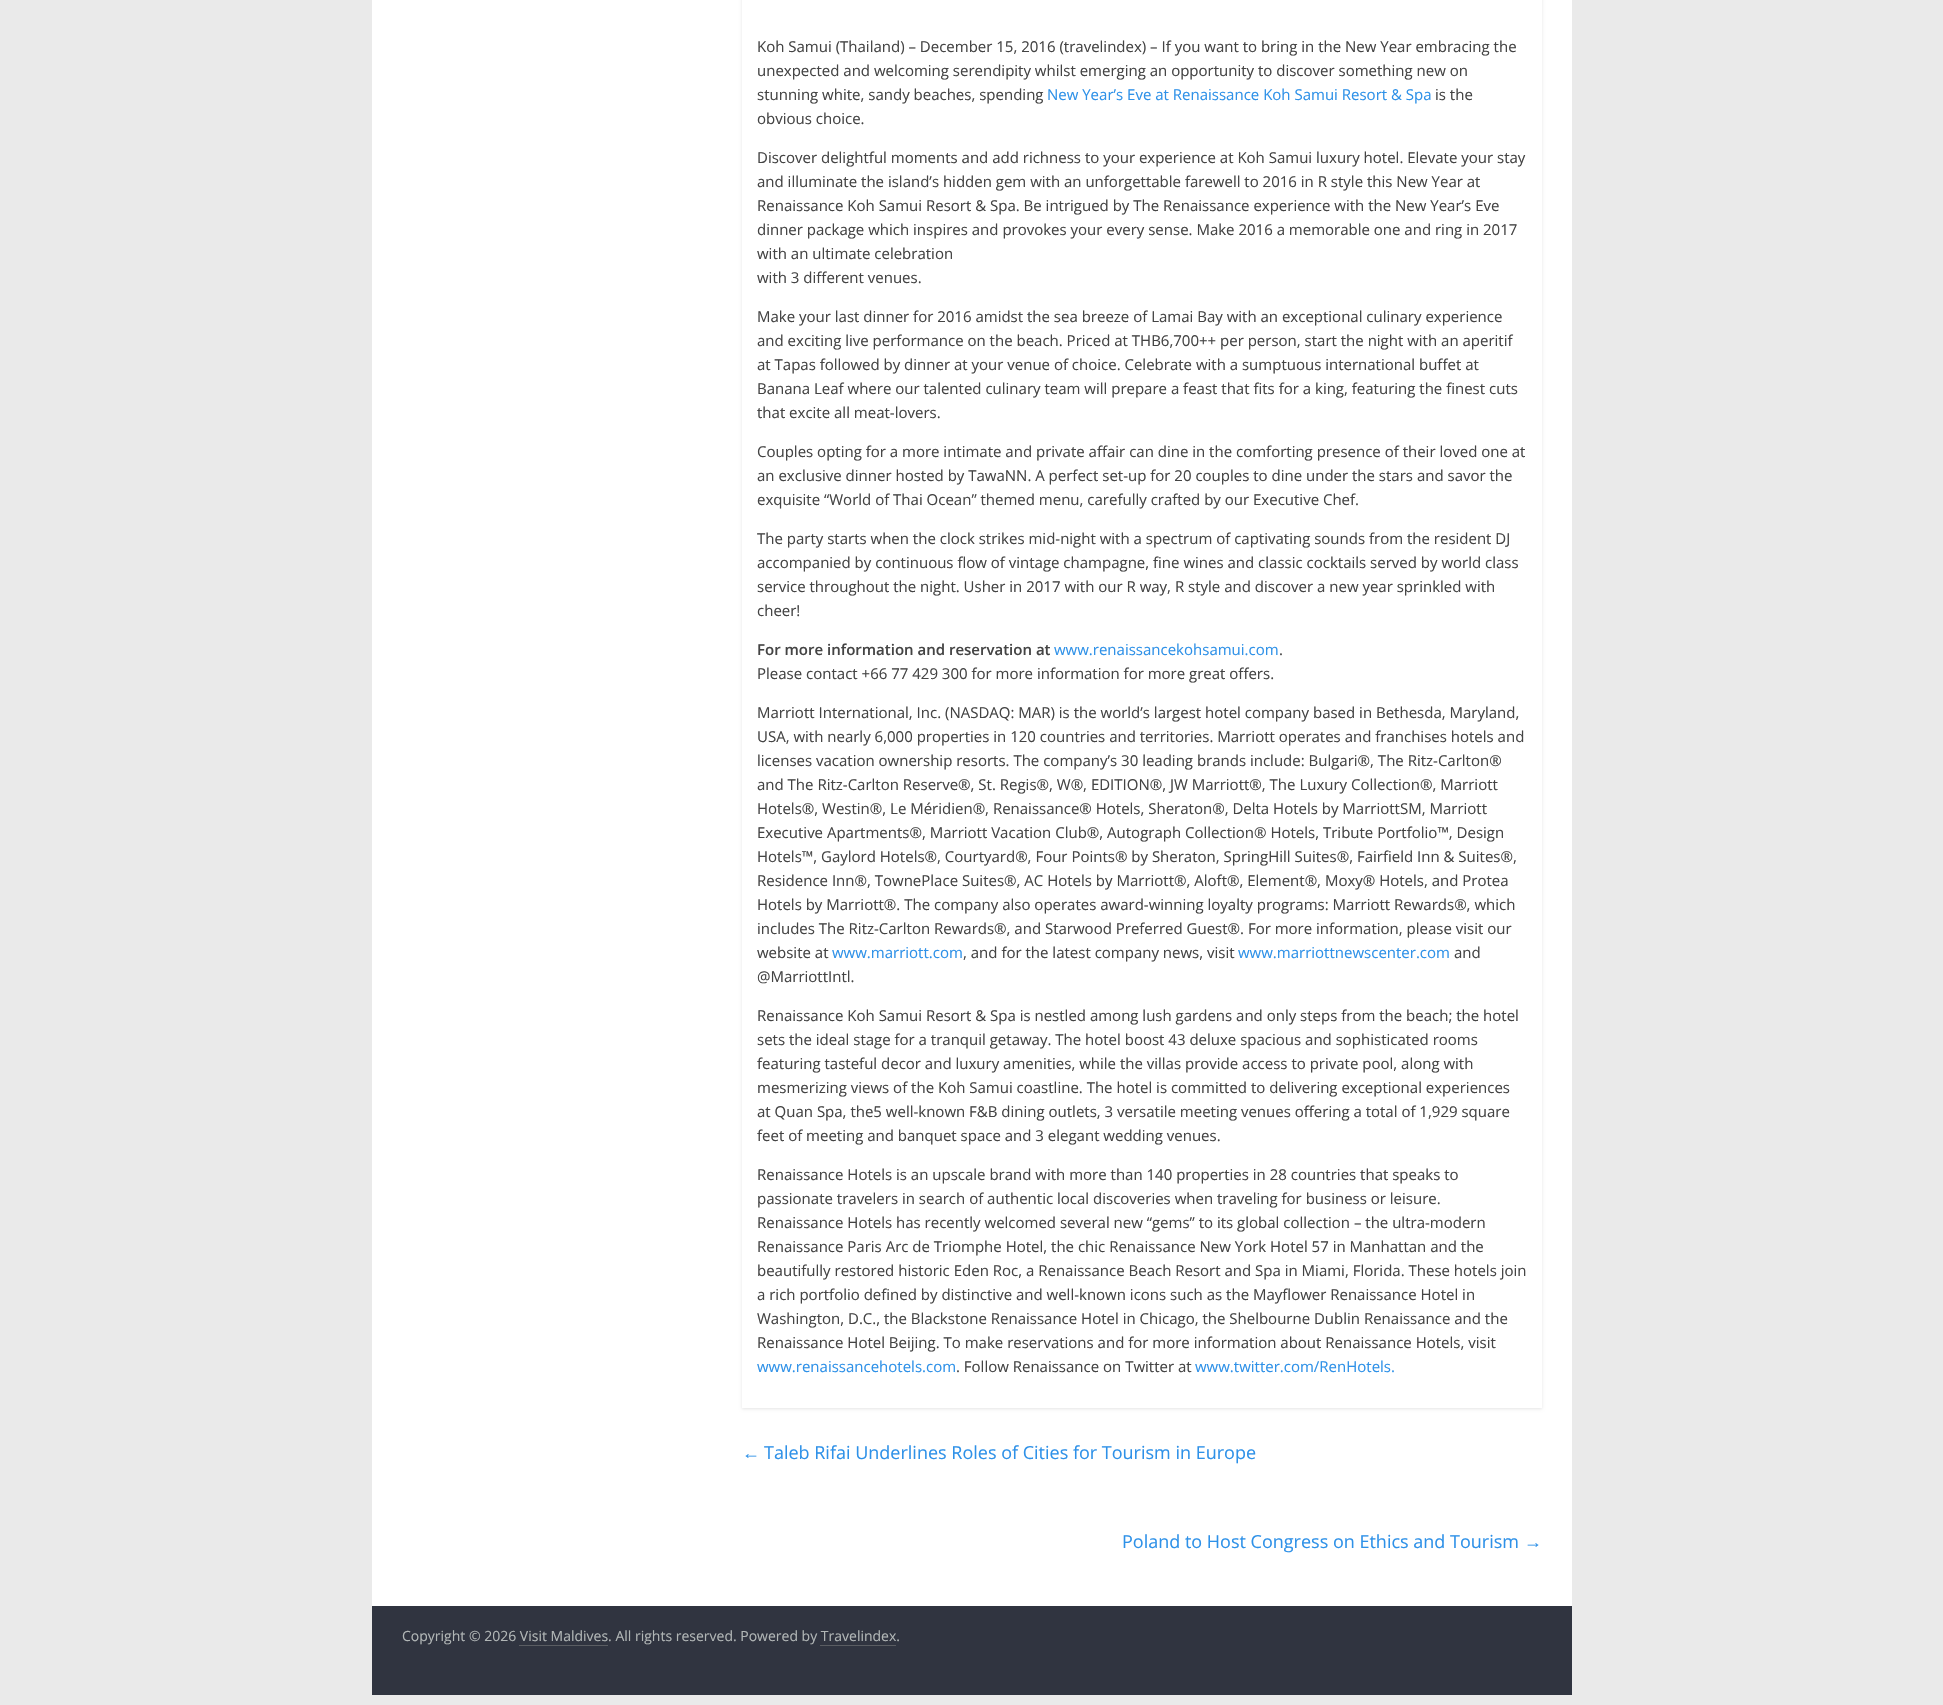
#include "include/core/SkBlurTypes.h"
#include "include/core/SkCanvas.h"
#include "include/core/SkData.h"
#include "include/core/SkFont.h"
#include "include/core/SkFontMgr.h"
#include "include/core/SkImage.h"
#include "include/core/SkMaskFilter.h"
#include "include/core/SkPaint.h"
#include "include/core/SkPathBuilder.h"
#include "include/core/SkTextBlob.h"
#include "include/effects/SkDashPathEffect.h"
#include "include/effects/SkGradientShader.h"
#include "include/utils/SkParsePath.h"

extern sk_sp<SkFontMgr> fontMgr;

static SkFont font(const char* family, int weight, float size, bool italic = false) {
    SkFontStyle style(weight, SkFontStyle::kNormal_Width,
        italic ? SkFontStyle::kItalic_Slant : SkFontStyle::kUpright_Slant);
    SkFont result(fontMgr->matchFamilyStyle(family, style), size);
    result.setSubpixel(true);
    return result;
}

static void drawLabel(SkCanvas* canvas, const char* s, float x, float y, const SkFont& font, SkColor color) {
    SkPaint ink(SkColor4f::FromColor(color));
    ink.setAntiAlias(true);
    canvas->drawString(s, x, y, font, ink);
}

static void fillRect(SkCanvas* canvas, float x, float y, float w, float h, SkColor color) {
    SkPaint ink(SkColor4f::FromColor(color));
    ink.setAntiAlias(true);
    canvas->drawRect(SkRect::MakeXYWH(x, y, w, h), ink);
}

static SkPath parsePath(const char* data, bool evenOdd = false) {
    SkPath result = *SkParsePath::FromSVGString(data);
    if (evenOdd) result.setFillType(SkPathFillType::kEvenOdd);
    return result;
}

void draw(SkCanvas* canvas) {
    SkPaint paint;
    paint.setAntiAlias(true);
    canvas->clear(0xFFEAEAEA);
    fillRect(canvas, 372, 0, 1200, 1606, 0xFFFFFFFF);
    canvas->save();
    canvas->clipPath(parsePath("M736 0H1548V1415H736ZM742-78H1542V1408H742Z", true), true);
    paint.setColor(0x1A000000);
    paint.setMaskFilter(SkMaskFilter::MakeBlur(kNormal_SkBlurStyle, 1.5f));
    canvas->drawRect(SkRect::MakeXYWH(742, -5, 800, 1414), paint);
    paint.setMaskFilter(nullptr);
    canvas->restore();
    SkFont font1 = font("Open Sans", 400, 15);
    drawLabel(canvas, "Koh Samui (Thailand) – December 15, 2016 (travelindex) – If you want to bring in the New Year embracing the", 757, 52, font1, 0xFF444444);
    drawLabel(canvas, "unexpected and welcoming serendipity whilst emerging an opportunity to discover something new on", 757, 76, font1, 0xFF444444);
    drawLabel(canvas, "stunning white, sandy beaches, spending", 757, 100, font1, 0xFF444444);
    drawLabel(canvas, "New Year’s Eve at Renaissance Koh Samui Resort & Spa", 1047, 100, font1, 0xFF2E91E8);
    drawLabel(canvas, "is the", 1435, 100, font1, 0xFF444444);
    drawLabel(canvas, "obvious choice.", 757, 124, font1, 0xFF444444);
    drawLabel(canvas, "Discover delightful moments and add richness to your experience at Koh Samui luxury hotel. Elevate your stay", 757, 163, font1, 0xFF444444);
    drawLabel(canvas, "and illuminate the island’s hidden gem with an unforgettable farewell to 2016 in R style this New Year at", 757, 187, font1, 0xFF444444);
    drawLabel(canvas, "Renaissance Koh Samui Resort & Spa. Be intrigued by The Renaissance experience with the New Year’s Eve", 757, 211, font1, 0xFF444444);
    drawLabel(canvas, "dinner package which inspires and provokes your every sense. Make 2016 a memorable one and ring in 2017", 757, 235, font1, 0xFF444444);
    drawLabel(canvas, "with an ultimate celebration", 757, 259, font1, 0xFF444444);
    drawLabel(canvas, "with 3 different venues.", 757, 283, font1, 0xFF444444);
    drawLabel(canvas, "Make your last dinner for 2016 amidst the sea breeze of Lamai Bay with an exceptional culinary experience", 757, 322, font1, 0xFF444444);
    drawLabel(canvas, "and exciting live performance on the beach. Priced at THB6,700++ per person, start the night with an aperitif", 757, 346, font1, 0xFF444444);
    drawLabel(canvas, "at Tapas followed by dinner at your venue of choice. Celebrate with a sumptuous international buffet at", 757, 370, font1, 0xFF444444);
    drawLabel(canvas, "Banana Leaf where our talented culinary team will prepare a feast that fits for a king, featuring the finest cuts", 757, 394, font1, 0xFF444444);
    drawLabel(canvas, "that excite all meat-lovers.", 757, 418, font1, 0xFF444444);
    drawLabel(canvas, "Couples opting for a more intimate and private affair can dine in the comforting presence of their loved one at", 757, 457, font1, 0xFF444444);
    drawLabel(canvas, "an exclusive dinner hosted by TawaNN. A perfect set-up for 20 couples to dine under the stars and savor the", 757, 481, font1, 0xFF444444);
    drawLabel(canvas, "exquisite “World of Thai Ocean” themed menu, carefully crafted by our Executive Chef.", 757, 505, font1, 0xFF444444);
    drawLabel(canvas, "The party starts when the clock strikes mid-night with a spectrum of captivating sounds from the resident DJ", 757, 544, font1, 0xFF444444);
    drawLabel(canvas, "accompanied by continuous flow of vintage champagne, fine wines and classic cocktails served by world class", 757, 568, font1, 0xFF444444);
    drawLabel(canvas, "service throughout the night. Usher in 2017 with our R way, R style and discover a new year sprinkled with", 757, 592, font1, 0xFF444444);
    drawLabel(canvas, "cheer!", 757, 616, font1, 0xFF444444);
    SkFont font2 = font("Open Sans", 600, 15);
    drawLabel(canvas, "For more information and reservation at", 757, 655, font2, 0xFF444444);
    drawLabel(canvas, "www.renaissancekohsamui.com", 1054, 655, font1, 0xFF2E91E8);
    drawLabel(canvas, ".", 1279, 655, font1, 0xFF444444);
    drawLabel(canvas, "Please contact +66 77 429 300 for more information for more great offers.", 757, 679, font1, 0xFF444444);
    drawLabel(canvas, "Marriott International, Inc. (NASDAQ: MAR) is the world’s largest hotel company based in Bethesda, Maryland,", 757, 718, font1, 0xFF444444);
    drawLabel(canvas, "USA, with nearly 6,000 properties in 120 countries and territories. Marriott operates and franchises hotels and", 757, 742, font1, 0xFF444444);
    drawLabel(canvas, "licenses vacation ownership resorts. The company’s 30 leading brands include: Bulgari®, The Ritz-Carlton®", 757, 766, font1, 0xFF444444);
    drawLabel(canvas, "and The Ritz-Carlton Reserve®, St. Regis®, W®, EDITION®, JW Marriott®, The Luxury Collection®, Marriott", 757, 790, font1, 0xFF444444);
    drawLabel(canvas, "Hotels®, Westin®, Le Méridien®, Renaissance® Hotels, Sheraton®, Delta Hotels by MarriottSM, Marriott", 757, 814, font1, 0xFF444444);
    drawLabel(canvas, "Executive Apartments®, Marriott Vacation Club®, Autograph Collection® Hotels, Tribute Portfolio™, Design", 757, 838, font1, 0xFF444444);
    drawLabel(canvas, "Hotels™, Gaylord Hotels®, Courtyard®, Four Points® by Sheraton, SpringHill Suites®, Fairfield Inn & Suites®,", 757, 862, font1, 0xFF444444);
    drawLabel(canvas, "Residence Inn®, TownePlace Suites®, AC Hotels by Marriott®, Aloft®, Element®, Moxy® Hotels, and Protea", 757, 886, font1, 0xFF444444);
    drawLabel(canvas, "Hotels by Marriott®. The company also operates award-winning loyalty programs: Marriott Rewards®, which", 757, 910, font1, 0xFF444444);
    drawLabel(canvas, "includes The Ritz-Carlton Rewards®, and Starwood Preferred Guest®. For more information, please visit our", 757, 934, font1, 0xFF444444);
    drawLabel(canvas, "website at", 757, 958, font1, 0xFF444444);
    drawLabel(canvas, "www.marriott.com", 832, 958, font1, 0xFF2E91E8);
    drawLabel(canvas, ", and for the latest company news, visit", 963, 958, font1, 0xFF444444);
    drawLabel(canvas, "www.marriottnewscenter.com", 1238, 958, font1, 0xFF2E91E8);
    drawLabel(canvas, "and", 1454, 958, font1, 0xFF444444);
    drawLabel(canvas, "@MarriottIntl.", 757, 982, font1, 0xFF444444);
    drawLabel(canvas, "Renaissance Koh Samui Resort & Spa is nestled among lush gardens and only steps from the beach; the hotel", 757, 1021, font1, 0xFF444444);
    drawLabel(canvas, "sets the ideal stage for a tranquil getaway. The hotel boost 43 deluxe spacious and sophisticated rooms", 757, 1045, font1, 0xFF444444);
    drawLabel(canvas, "featuring tasteful decor and luxury amenities, while the villas provide access to private pool, along with", 757, 1069, font1, 0xFF444444);
    drawLabel(canvas, "mesmerizing views of the Koh Samui coastline. The hotel is committed to delivering exceptional experiences", 757, 1093, font1, 0xFF444444);
    drawLabel(canvas, "at Quan Spa, the5 well-known F&B dining outlets, 3 versatile meeting venues offering a total of 1,929 square", 757, 1117, font1, 0xFF444444);
    drawLabel(canvas, "feet of meeting and banquet space and 3 elegant wedding venues.", 757, 1141, font1, 0xFF444444);
    drawLabel(canvas, "Renaissance Hotels is an upscale brand with more than 140 properties in 28 countries that speaks to", 757, 1180, font1, 0xFF444444);
    drawLabel(canvas, "passionate travelers in search of authentic local discoveries when traveling for business or leisure.", 757, 1204, font1, 0xFF444444);
    drawLabel(canvas, "Renaissance Hotels has recently welcomed several new “gems” to its global collection – the ultra-modern", 757, 1228, font1, 0xFF444444);
    drawLabel(canvas, "Renaissance Paris Arc de Triomphe Hotel, the chic Renaissance New York Hotel 57 in Manhattan and the", 757, 1252, font1, 0xFF444444);
    drawLabel(canvas, "beautifully restored historic Eden Roc, a Renaissance Beach Resort and Spa in Miami, Florida. These hotels join", 757, 1276, font1, 0xFF444444);
    drawLabel(canvas, "a rich portfolio defined by distinctive and well-known icons such as the Mayflower Renaissance Hotel in", 757, 1300, font1, 0xFF444444);
    drawLabel(canvas, "Washington, D.C., the Blackstone Renaissance Hotel in Chicago, the Shelbourne Dublin Renaissance and the", 757, 1324, font1, 0xFF444444);
    drawLabel(canvas, "Renaissance Hotel Beijing. To make reservations and for more information about Renaissance Hotels, visit", 757, 1348, font1, 0xFF444444);
    drawLabel(canvas, "www.renaissancehotels.com", 757, 1372, font1, 0xFF2E91E8);
    drawLabel(canvas, ". Follow Renaissance on Twitter at", 956, 1372, font1, 0xFF444444);
    drawLabel(canvas, "www.twitter.com/RenHotels.", 1195, 1372, font1, 0xFF2E91E8);
    SkFont font3 = font("Liberation Serif", 400, 18);
    drawLabel(canvas, "←", 742, 1459, font3, 0xFF2E91E8);
    SkFont font4 = font("Open Sans", 400, 18);
    drawLabel(canvas, "Taleb Rifai Underlines Roles of Cities for Tourism in Europe", 764, 1459, font4, 0xFF2E91E8);
    drawLabel(canvas, "Poland to Host Congress on Ethics and Tourism", 1122, 1548, font4, 0xFF2E91E8);
    drawLabel(canvas, "→", 1524, 1548, font3, 0xFF2E91E8);
    fillRect(canvas, 372, 1606, 1200, 89, 0xFF303440);
    SkFont font5 = font("Open Sans", 400, 14);
    drawLabel(canvas, "Copyright © 2026 Visit Maldives. All rights reserved. Powered by Travelindex.", 402, 1641, font5, 0xFFB1B6B6);
    fillRect(canvas, 519, 1645, 89, 1, 0xFF5A5D62);
    fillRect(canvas, 820, 1645, 76, 1, 0xFF5A5D62);
}
